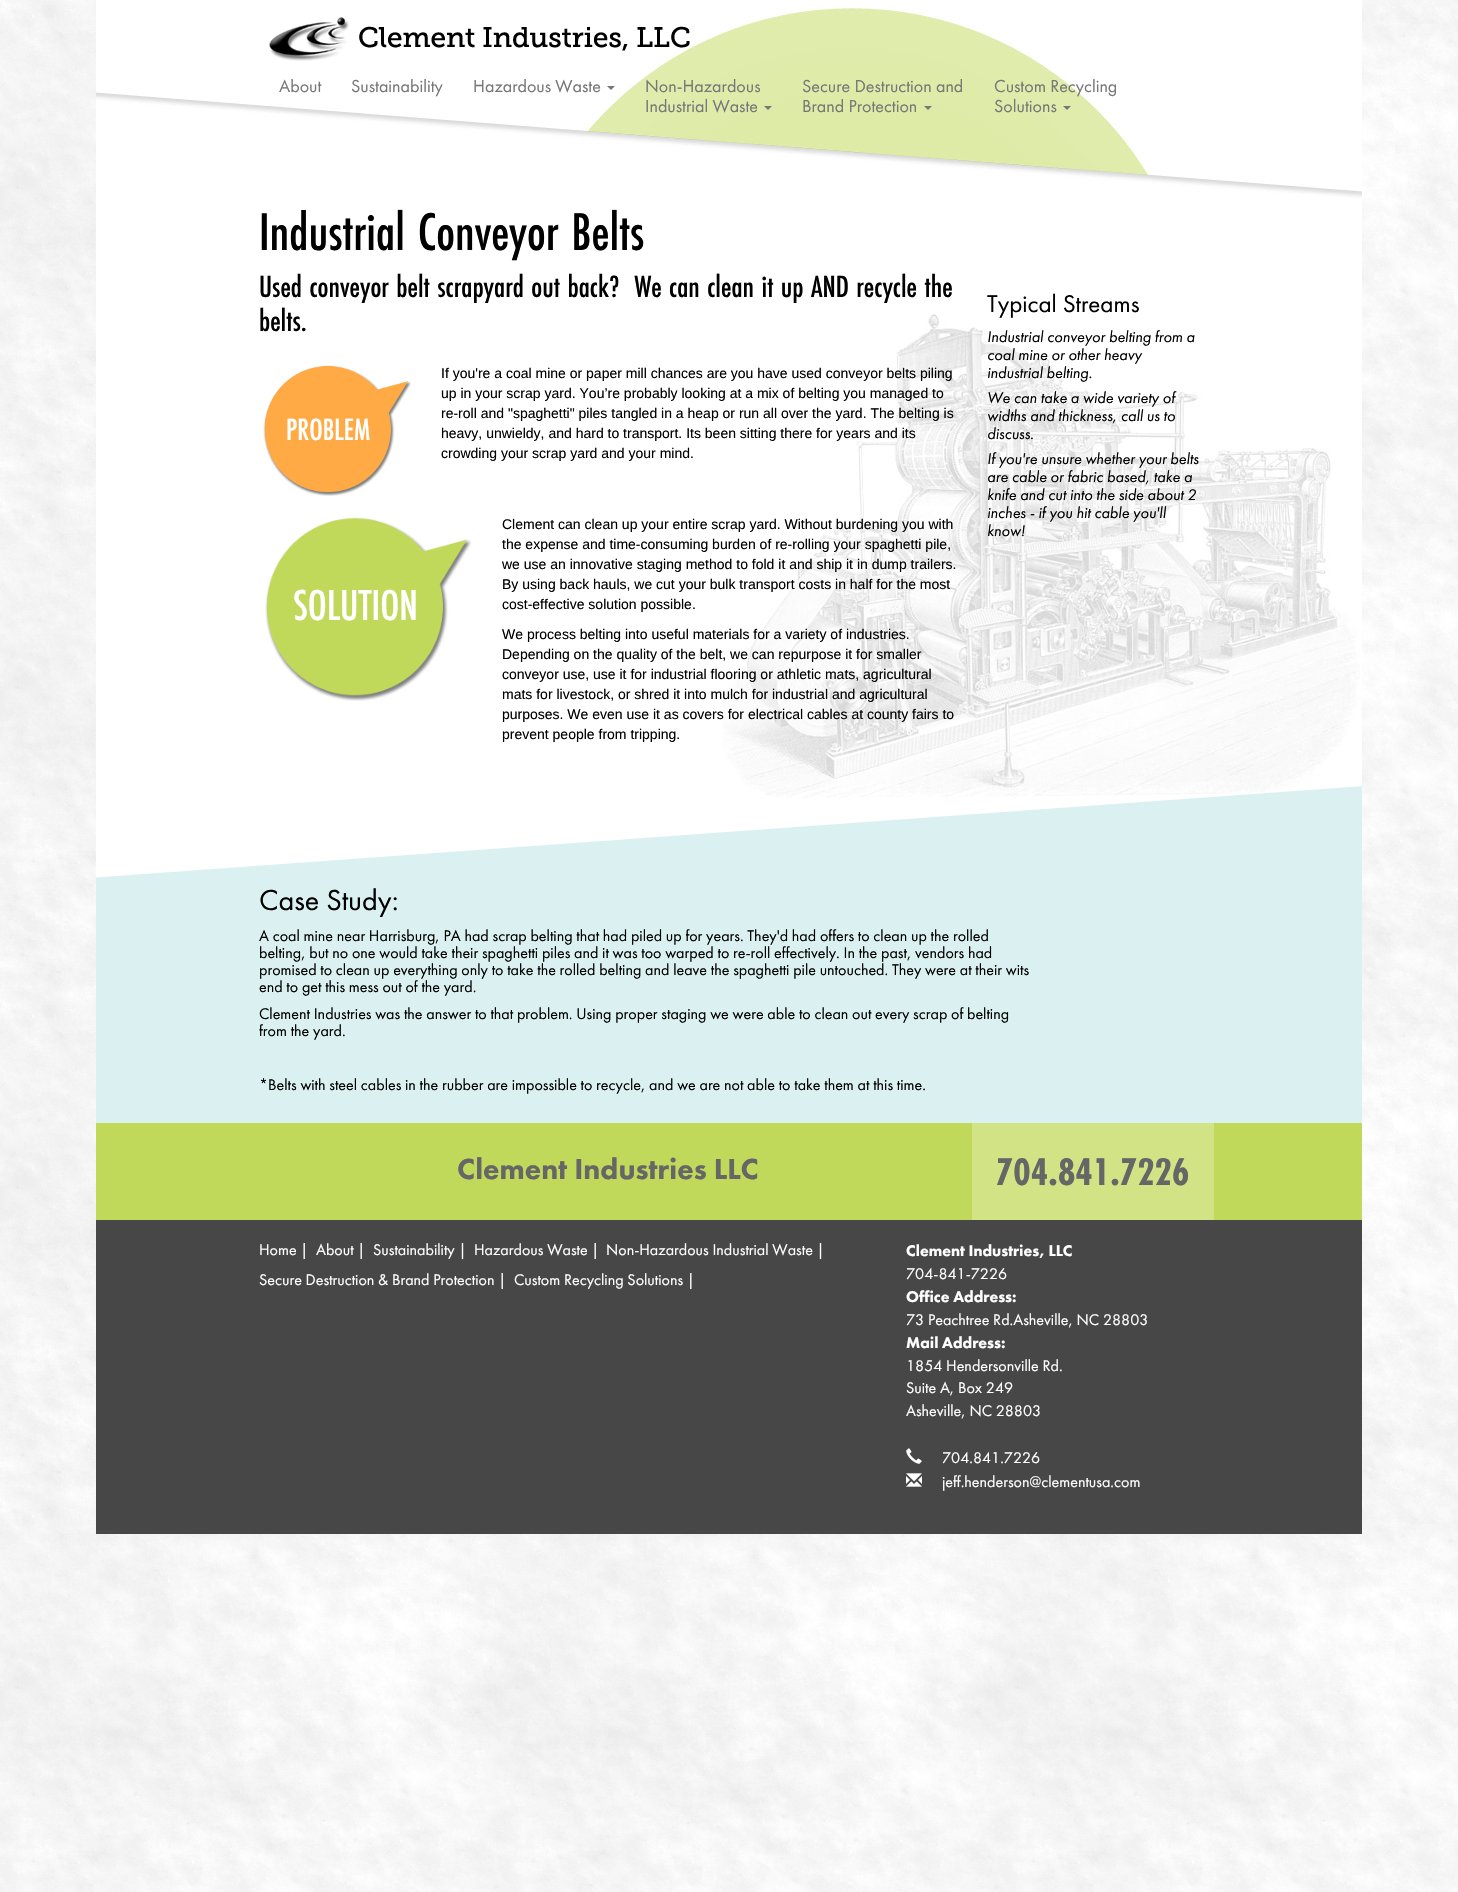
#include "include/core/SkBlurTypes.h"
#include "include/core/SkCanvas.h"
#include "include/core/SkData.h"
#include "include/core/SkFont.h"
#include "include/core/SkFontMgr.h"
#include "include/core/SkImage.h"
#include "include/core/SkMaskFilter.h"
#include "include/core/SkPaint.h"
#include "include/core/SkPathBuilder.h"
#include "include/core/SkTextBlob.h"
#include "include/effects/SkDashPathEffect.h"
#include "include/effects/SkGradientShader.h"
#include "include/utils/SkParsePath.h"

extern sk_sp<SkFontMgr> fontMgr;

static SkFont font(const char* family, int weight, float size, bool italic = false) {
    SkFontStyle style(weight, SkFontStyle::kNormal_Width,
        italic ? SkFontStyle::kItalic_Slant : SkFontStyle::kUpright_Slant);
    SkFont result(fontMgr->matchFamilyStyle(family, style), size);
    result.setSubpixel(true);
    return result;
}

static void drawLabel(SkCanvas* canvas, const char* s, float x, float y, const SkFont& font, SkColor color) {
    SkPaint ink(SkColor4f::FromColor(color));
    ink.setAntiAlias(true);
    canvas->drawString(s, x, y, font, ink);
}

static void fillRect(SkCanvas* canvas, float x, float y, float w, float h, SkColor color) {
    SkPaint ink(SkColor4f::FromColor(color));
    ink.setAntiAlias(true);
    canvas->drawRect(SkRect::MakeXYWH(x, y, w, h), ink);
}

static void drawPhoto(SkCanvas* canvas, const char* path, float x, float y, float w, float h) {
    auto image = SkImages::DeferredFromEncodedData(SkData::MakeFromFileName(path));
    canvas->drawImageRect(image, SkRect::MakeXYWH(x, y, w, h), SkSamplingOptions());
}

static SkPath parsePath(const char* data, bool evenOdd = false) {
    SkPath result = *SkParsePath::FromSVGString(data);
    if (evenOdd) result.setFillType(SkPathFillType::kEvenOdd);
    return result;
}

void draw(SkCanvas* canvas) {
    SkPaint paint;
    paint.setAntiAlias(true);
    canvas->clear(0xFFFFFFFF);
    drawPhoto(canvas, "assets/img1.png", 0, 0, 1458, 1892);
    drawPhoto(canvas, "assets/img2.png", 96, 0, 1266, 203);
    drawPhoto(canvas, "assets/img3.png", 269, 17, 421, 44);
    SkFont font1 = font("Futura PT", 400, 18);
    drawLabel(canvas, "About", 279, 92, font1, 0xFF777777);
    drawLabel(canvas, "Sustainability", 351, 92, font1, 0xFF777777);
    drawLabel(canvas, "Hazardous Waste", 473, 92, font1, 0xFF777777);
    paint.setColor(0xFF777777);
    canvas->drawPath(parsePath("M607 86H615L611 90Z"), paint);
    drawLabel(canvas, "Non-Hazardous", 645, 92, font1, 0xFF777777);
    drawLabel(canvas, "Industrial Waste", 645, 112, font1, 0xFF777777);
    canvas->drawPath(parsePath("M764 106H772L768 110Z"), paint);
    drawLabel(canvas, "Secure Destruction and", 802, 92, font1, 0xFF777777);
    drawLabel(canvas, "Brand Protection", 802, 112, font1, 0xFF777777);
    canvas->drawPath(parsePath("M924 106H932L928 110Z"), paint);
    drawLabel(canvas, "Custom Recycling", 994, 92, font1, 0xFF777777);
    drawLabel(canvas, "Solutions", 994, 112, font1, 0xFF777777);
    canvas->drawPath(parsePath("M1063 106H1071L1067 110Z"), paint);
    fillRect(canvas, 96, 203, 1266, 675, 0xFFFFFFFF);
    drawPhoto(canvas, "assets/img4.png", 722, 314, 638, 484);
    SkFont font2 = font("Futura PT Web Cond", 500, 55);
    drawLabel(canvas, "Industrial Conveyor Belts", 259, 250, font2, 0xFF000000);
    SkFont font3 = font("Futura PT Web Cond", 500, 32);
    drawLabel(canvas, "Used conveyor belt scrapyard out back?  We can clean it up AND recycle the", 259, 297, font3, 0xFF000000);
    drawLabel(canvas, "belts.", 259, 331, font3, 0xFF000000);
    drawPhoto(canvas, "assets/img5.png", 263, 365, 148, 131);
    drawLabel(canvas, "PROBLEM", 286, 440, font3, 0xFFFFFFFF);
    SkFont font4 = font("Liberation Sans", 400, 14);
    drawLabel(canvas, "If you're a coal mine or paper mill chances are you have used conveyor belts piling", 441, 378, font4, 0xFF000000);
    drawLabel(canvas, "up in your scrap yard. You’re probably looking at a mix of belting you managed to", 441, 398, font4, 0xFF000000);
    drawLabel(canvas, "re-roll and \"spaghetti\" piles tangled in a heap or run all over the yard. The belting is", 441, 418, font4, 0xFF000000);
    drawLabel(canvas, "heavy, unwieldy, and hard to transport. Its been sitting there for years and its", 441, 438, font4, 0xFF000000);
    drawLabel(canvas, "crowding your scrap yard and your mind.", 441, 458, font4, 0xFF000000);
    drawPhoto(canvas, "assets/img6.png", 265, 517, 206, 184);
    SkFont font5 = font("Futura PT Web Cond", 500, 45);
    drawLabel(canvas, "SOLUTION", 293, 620, font5, 0xFFFFFFFF);
    drawLabel(canvas, "Clement can clean up your entire scrap yard. Without burdening you with", 502, 529, font4, 0xFF000000);
    drawLabel(canvas, "the expense and time-consuming burden of re-rolling your spaghetti pile,", 502, 549, font4, 0xFF000000);
    drawLabel(canvas, "we use an innovative staging method to fold it and ship it in dump trailers.", 502, 569, font4, 0xFF000000);
    drawLabel(canvas, "By using back hauls, we cut your bulk transport costs in half for the most", 502, 589, font4, 0xFF000000);
    drawLabel(canvas, "cost-effective solution possible.", 502, 609, font4, 0xFF000000);
    drawLabel(canvas, "We process belting into useful materials for a variety of industries.", 502, 639, font4, 0xFF000000);
    drawLabel(canvas, "Depending on the quality of the belt, we can repurpose it for smaller", 502, 659, font4, 0xFF000000);
    drawLabel(canvas, "conveyor use, use it for industrial flooring or athletic mats, agricultural", 502, 679, font4, 0xFF000000);
    drawLabel(canvas, "mats for livestock, or shred it into mulch for industrial and agricultural", 502, 699, font4, 0xFF000000);
    drawLabel(canvas, "purposes. We even use it as covers for electrical cables at county fairs to", 502, 719, font4, 0xFF000000);
    drawLabel(canvas, "prevent people from tripping.", 502, 739, font4, 0xFF000000);
    SkFont font6 = font("Futura PT", 400, 25);
    drawLabel(canvas, "Typical Streams", 987, 312, font6, 0xFF000000);
    SkFont font7 = font("Futura PT", 400, 16, true);
    drawLabel(canvas, "Industrial conveyor belting from a", 987, 342, font7, 0xFF000000);
    drawLabel(canvas, "coal mine or other heavy", 987, 360, font7, 0xFF000000);
    drawLabel(canvas, "industrial belting.", 987, 378, font7, 0xFF000000);
    drawLabel(canvas, "We can take a wide variety of", 987, 403, font7, 0xFF000000);
    drawLabel(canvas, "widths and thickness, call us to", 987, 421, font7, 0xFF000000);
    drawLabel(canvas, "discuss.", 987, 439, font7, 0xFF000000);
    drawLabel(canvas, "If you're unsure whether your belts", 987, 464, font7, 0xFF000000);
    drawLabel(canvas, "are cable or fabric based, take a", 987, 482, font7, 0xFF000000);
    drawLabel(canvas, "knife and cut into the side about 2", 987, 500, font7, 0xFF000000);
    drawLabel(canvas, "inches - if you hit cable you'll", 987, 518, font7, 0xFF000000);
    drawLabel(canvas, "know!", 987, 536, font7, 0xFF000000);
    drawPhoto(canvas, "assets/img7.png", 96, 786, 1266, 98);
    fillRect(canvas, 96, 884, 1266, 239, 0xFFDBF1F1);
    SkFont font8 = font("Futura PT", 400, 30);
    drawLabel(canvas, "Case Study:", 259, 910, font8, 0xFF000000);
    SkFont font9 = font("Futura PT", 400, 16);
    drawLabel(canvas, "A coal mine near Harrisburg, PA had scrap belting that had piled up for years. They'd had offers to clean up the rolled", 259, 941, font9, 0xFF000000);
    drawLabel(canvas, "belting, but no one would take their spaghetti piles and it was too warped to re-roll effectively. In the past, vendors had", 259, 958, font9, 0xFF000000);
    drawLabel(canvas, "promised to clean up everything only to take the rolled belting and leave the spaghetti pile untouched. They were at their wits", 259, 975, font9, 0xFF000000);
    drawLabel(canvas, "end to get this mess out of the yard.", 259, 992, font9, 0xFF000000);
    drawLabel(canvas, "Clement Industries was the answer to that problem. Using proper staging we were able to clean out every scrap of belting", 259, 1019, font9, 0xFF000000);
    drawLabel(canvas, "from the yard.", 259, 1036, font9, 0xFF000000);
    drawLabel(canvas, "*Belts with steel cables in the rubber are impossible to recycle, and we are not able to take them at this time.", 259, 1090, font9, 0xFF000000);
    fillRect(canvas, 96, 1123, 1266, 97, 0xFFC1D95B);
    SkFont font10 = font("Futura PT", 900, 30);
    drawLabel(canvas, "Clement Industries LLC", 457, 1179, font10, 0xFF666666);
    fillRect(canvas, 972, 1123, 242, 97, 0xFFD1E384);
    SkFont font11 = font("Futura PT Web Cond", 700, 40);
    drawLabel(canvas, "704.841.7226", 996, 1185, font11, 0xFF666666);
    fillRect(canvas, 96, 1220, 1266, 314, 0xFF474747);
    drawLabel(canvas, "Home |", 259, 1255, font9, 0xFFFFFFFF);
    drawLabel(canvas, "About |", 316, 1255, font9, 0xFFFFFFFF);
    drawLabel(canvas, "Sustainability |", 373, 1255, font9, 0xFFFFFFFF);
    drawLabel(canvas, "Hazardous Waste |", 474, 1255, font9, 0xFFFFFFFF);
    drawLabel(canvas, "Non-Hazardous Industrial Waste |", 606, 1255, font9, 0xFFFFFFFF);
    drawLabel(canvas, "Secure Destruction & Brand Protection |", 259, 1285, font9, 0xFFFFFFFF);
    drawLabel(canvas, "Custom Recycling Solutions |", 514, 1285, font9, 0xFFFFFFFF);
    SkFont font12 = font("Futura PT", 900, 16);
    drawLabel(canvas, "Clement Industries, LLC", 906, 1256, font12, 0xFFFFFFFF);
    drawLabel(canvas, "704-841-7226", 906, 1279, font9, 0xFFFFFFFF);
    drawLabel(canvas, "Office Address:", 906, 1302, font12, 0xFFFFFFFF);
    drawLabel(canvas, "73 Peachtree Rd.Asheville, NC 28803", 906, 1325, font9, 0xFFFFFFFF);
    drawLabel(canvas, "Mail Address:", 906, 1348, font12, 0xFFFFFFFF);
    drawLabel(canvas, "1854 Hendersonville Rd.", 906, 1371, font9, 0xFFFFFFFF);
    drawLabel(canvas, "Suite A, Box 249", 906, 1393, font9, 0xFFFFFFFF);
    drawLabel(canvas, "Asheville, NC 28803", 906, 1416, font9, 0xFFFFFFFF);
    drawPhoto(canvas, "assets/img8.png", 906, 1448, 16, 16);
    drawLabel(canvas, "704.841.7226", 942, 1463, font9, 0xFFFFFFFF);
    drawPhoto(canvas, "assets/img9.png", 906, 1473, 16, 14);
    drawLabel(canvas, "jeff.henderson@clementusa.com", 942, 1487, font9, 0xFFFFFFFF);
}
